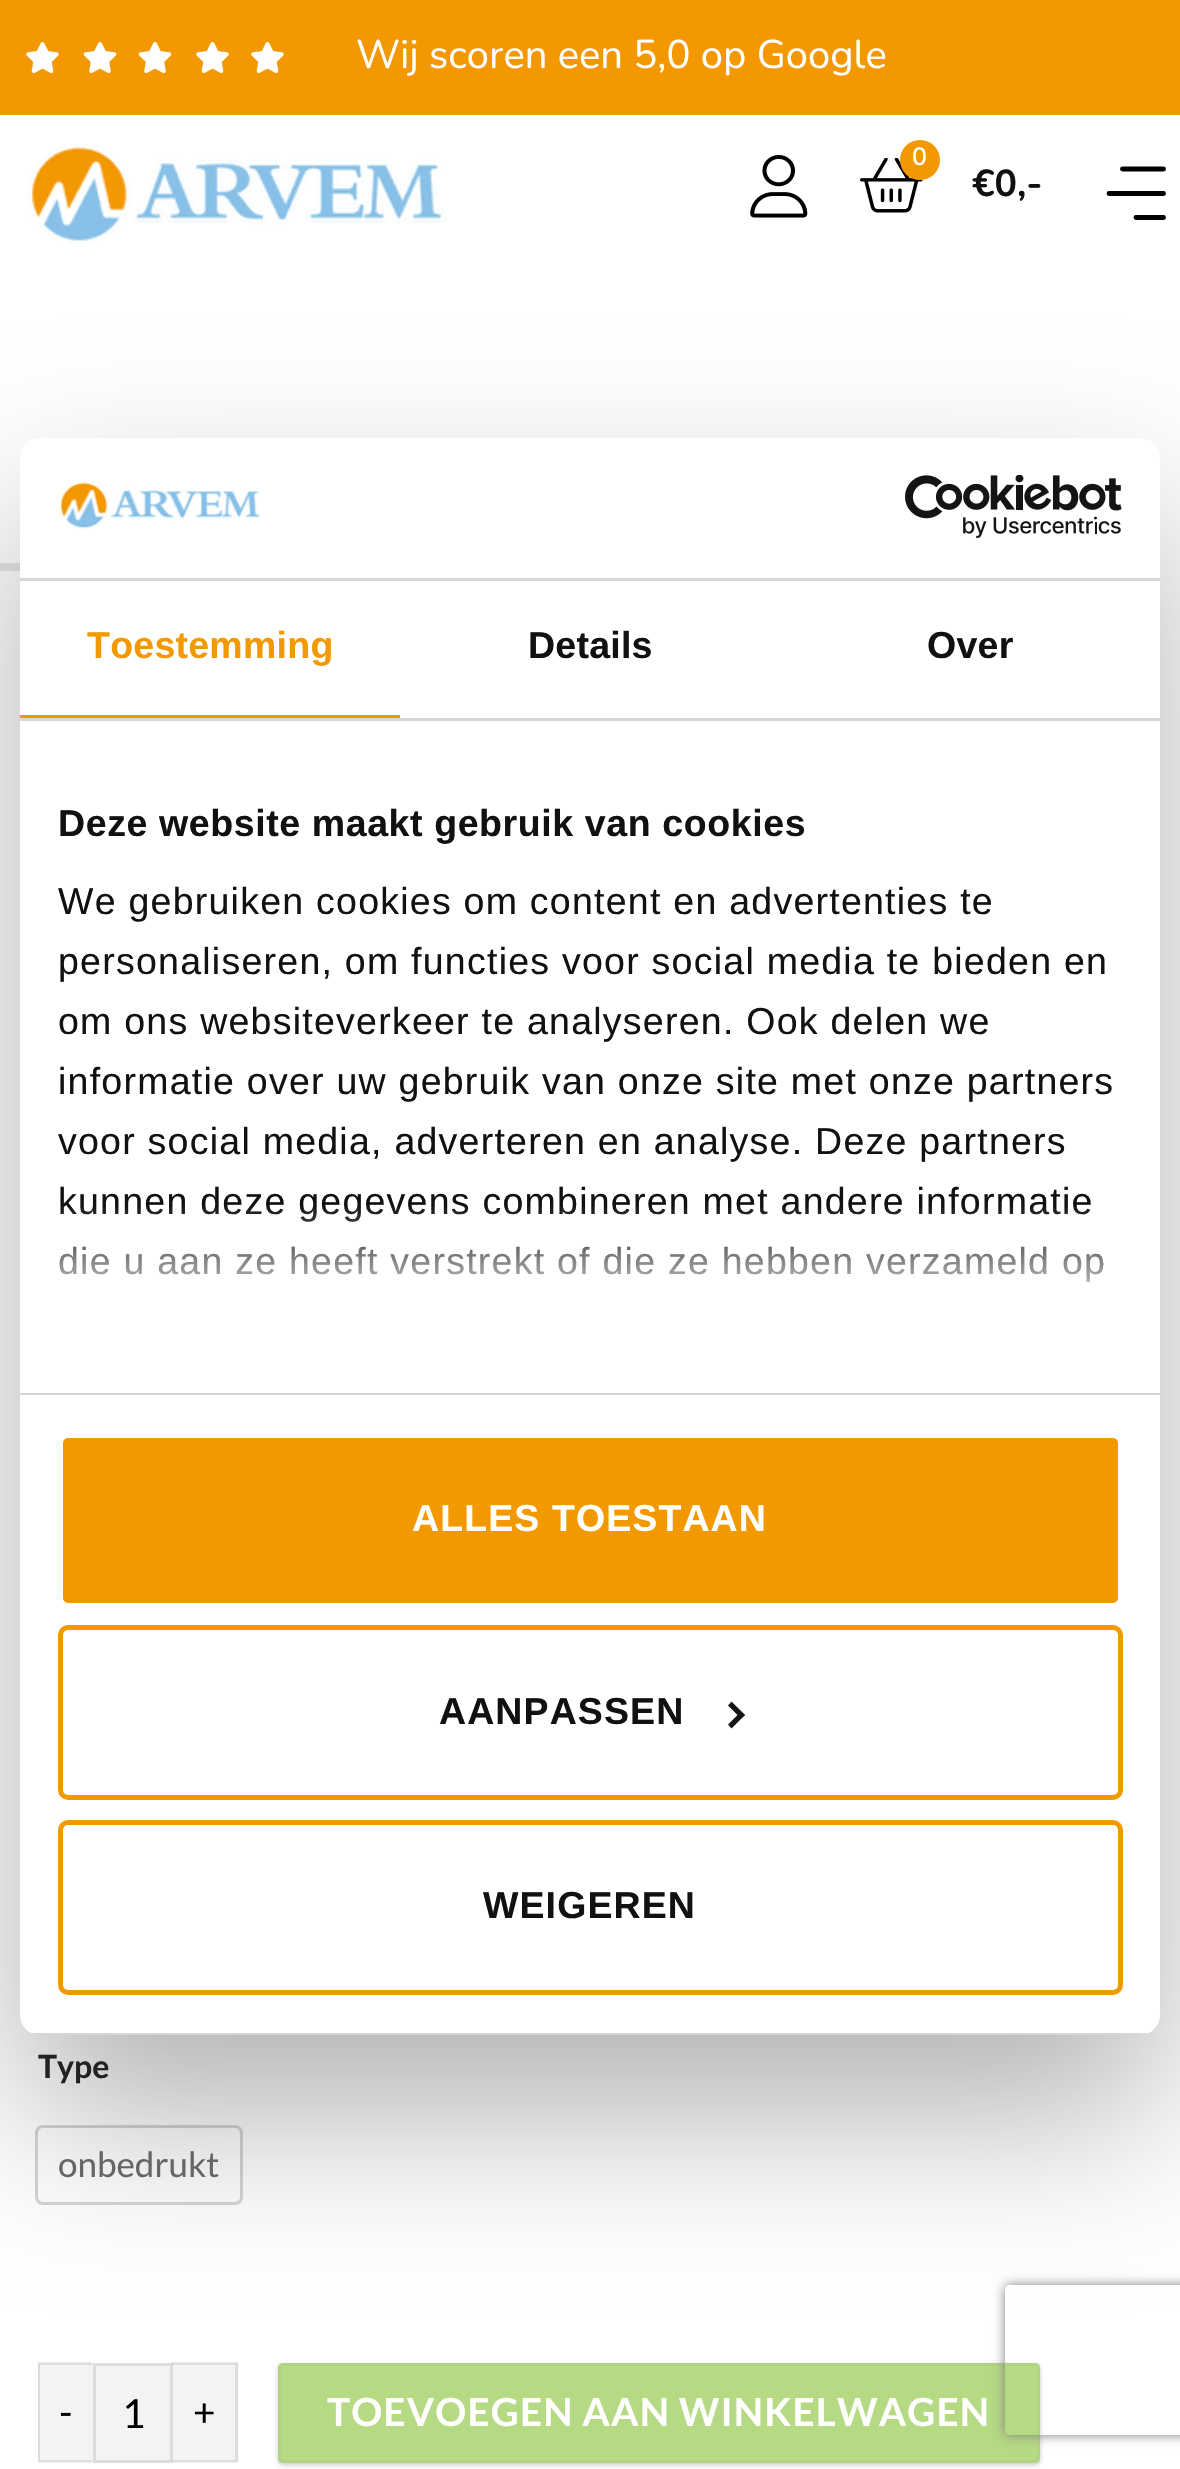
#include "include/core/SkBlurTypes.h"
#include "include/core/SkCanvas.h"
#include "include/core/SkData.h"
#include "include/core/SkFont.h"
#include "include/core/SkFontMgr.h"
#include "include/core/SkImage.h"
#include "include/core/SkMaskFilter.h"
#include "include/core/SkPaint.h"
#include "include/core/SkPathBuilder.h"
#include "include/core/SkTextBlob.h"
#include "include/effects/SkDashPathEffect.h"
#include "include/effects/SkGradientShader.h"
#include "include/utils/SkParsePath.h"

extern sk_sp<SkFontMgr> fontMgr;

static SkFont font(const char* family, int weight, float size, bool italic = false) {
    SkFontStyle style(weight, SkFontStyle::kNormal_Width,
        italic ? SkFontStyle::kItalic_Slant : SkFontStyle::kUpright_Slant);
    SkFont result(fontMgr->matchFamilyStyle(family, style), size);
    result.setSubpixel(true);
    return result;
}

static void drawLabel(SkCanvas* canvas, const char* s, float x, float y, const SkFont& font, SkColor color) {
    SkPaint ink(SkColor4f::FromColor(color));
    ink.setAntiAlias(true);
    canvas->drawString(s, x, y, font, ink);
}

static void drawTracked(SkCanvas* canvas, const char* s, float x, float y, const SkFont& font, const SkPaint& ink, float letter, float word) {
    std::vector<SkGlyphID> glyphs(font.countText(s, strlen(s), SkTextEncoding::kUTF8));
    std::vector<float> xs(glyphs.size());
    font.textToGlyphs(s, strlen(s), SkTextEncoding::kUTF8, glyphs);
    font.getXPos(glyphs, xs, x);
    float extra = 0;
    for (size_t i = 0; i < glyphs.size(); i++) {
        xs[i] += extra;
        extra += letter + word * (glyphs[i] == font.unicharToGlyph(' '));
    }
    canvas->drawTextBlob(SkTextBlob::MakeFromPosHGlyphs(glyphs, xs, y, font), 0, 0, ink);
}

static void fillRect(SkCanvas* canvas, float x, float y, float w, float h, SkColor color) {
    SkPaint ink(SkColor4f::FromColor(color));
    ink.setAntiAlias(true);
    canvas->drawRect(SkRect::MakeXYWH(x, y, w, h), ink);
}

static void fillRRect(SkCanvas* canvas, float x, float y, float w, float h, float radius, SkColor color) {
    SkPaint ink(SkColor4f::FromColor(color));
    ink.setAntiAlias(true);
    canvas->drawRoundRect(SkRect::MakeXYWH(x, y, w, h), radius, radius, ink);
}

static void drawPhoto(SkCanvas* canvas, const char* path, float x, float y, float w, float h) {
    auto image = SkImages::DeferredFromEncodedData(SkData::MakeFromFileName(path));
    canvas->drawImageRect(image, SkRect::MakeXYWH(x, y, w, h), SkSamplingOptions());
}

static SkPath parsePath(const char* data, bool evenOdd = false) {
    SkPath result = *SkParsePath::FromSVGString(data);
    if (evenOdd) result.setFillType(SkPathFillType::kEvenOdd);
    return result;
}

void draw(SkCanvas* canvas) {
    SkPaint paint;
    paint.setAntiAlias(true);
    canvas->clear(0xFFFFFFFF);
    fillRect(canvas, 0, 0, 1180, 115, 0xFFF39801);
    drawPhoto(canvas, "assets/img1.png", 26, 42, 33, 31);
    drawPhoto(canvas, "assets/img2.png", 83, 42, 34, 31);
    drawPhoto(canvas, "assets/img2.png", 138, 42, 34, 31);
    drawPhoto(canvas, "assets/img1.png", 196, 42, 33, 31);
    drawPhoto(canvas, "assets/img1.png", 251, 42, 33, 31);
    SkFont font1 = font("Nunito", 400, 40);
    drawLabel(canvas, "Wij scoren een 5,0 op Google", 356, 68, font1, 0xFFFFFFFF);
    drawPhoto(canvas, "assets/img3.png", 27, 144, 419, 102);
    drawPhoto(canvas, "assets/img4.png", 750, 155, 58, 63);
    drawPhoto(canvas, "assets/img5.png", 860, 158, 63, 55);
    paint.setColor(0xFFF39801);
    canvas->drawCircle(920, 160, 20, paint);
    SkFont font2 = font("Nunito", 600, 25);
    drawLabel(canvas, "0", 912, 165, font2, 0xFFFFFFFF);
    SkFont font3 = font("Nunito", 700, 37.5f);
    drawLabel(canvas, "€0,-", 972, 196, font3, 0xFF111111);
    paint.setStroke(true);
    paint.setStrokeWidth(4.9f);
    paint.setStrokeCap(SkPaint::kRound_Cap);
    paint.setStrokeJoin(SkPaint::kRound_Join);
    paint.setColor(0xFF000000);
    canvas->drawPath(parsePath("M1163.5 169H1122.5M1163.5 193.5H1109M1163.5 217.5H1136"), paint);
    fillRect(canvas, 0, 563, 20, 8, 0xFFE5E5E5);
    paint.setStrokeWidth(3);
    paint.setStrokeCap(SkPaint::kButt_Cap);
    paint.setStrokeJoin(SkPaint::kMiter_Join);
    paint.setColor(0xFFD5D5D5);
    canvas->drawRoundRect(SkRect::MakeXYWH(36.5f, 2126.5f, 205, 77), 6.5f, 6.5f, paint);
    fillRect(canvas, 38, 2363, 55, 100, 0xFFF3F3F3);
    paint.setStroke(false);
    paint.setColor(0x17000000);
    canvas->drawPath(parsePath("M38 2362H92V2365H40Z"), paint);
    paint.setColor(0xFFDDDDDD);
    canvas->drawPath(parsePath("M92 2462H38L40 2460H92Z"), paint);
    paint.setColor(0x17000000);
    canvas->drawPath(parsePath("M38 2462V2362L40 2365V2460Z"), paint);
    paint.setColor(0xFFF3F3F3);
    canvas->drawRect(SkRect::MakeXYWH(94.5f, 2364.5f, 77, 97), paint);
    paint.setStroke(true);
    paint.setColor(0xFFDDDDDD);
    canvas->drawRect(SkRect::MakeXYWH(94.5f, 2364.5f, 77, 97), paint);
    fillRect(canvas, 173, 2363, 65, 100, 0xFFF3F3F3);
    paint.setStroke(false);
    paint.setColor(0x17000000);
    canvas->drawPath(parsePath("M172 2362H238L235 2365H172Z"), paint);
    canvas->drawPath(parsePath("M238 2362V2462L235 2460V2365Z"), paint);
    paint.setColor(0x66707A8F);
    paint.setMaskFilter(SkMaskFilter::MakeBlur(kNormal_SkBlurStyle, 2.5f));
    canvas->drawRoundRect(SkRect::MakeXYWH(278, 2365, 762, 100), 5, 5, paint);
    paint.setMaskFilter(nullptr);
    fillRRect(canvas, 278, 2363, 762, 100, 5, 0xFFB6D983);
    paint.setStroke(true);
    paint.setColor(0x0D666666);
    canvas->drawRect(SkRect::MakeXYWH(279.5f, 2364.5f, 759, 97), paint);
    paint.setStroke(false);
    paint.setColor(0x4D000000);
    paint.setMaskFilter(SkMaskFilter::MakeBlur(kNormal_SkBlurStyle, 85));
    canvas->drawRoundRect(SkRect::MakeXYWH(20, 518, 1140, 1597), 20, 20, paint);
    paint.setMaskFilter(nullptr);
    fillRRect(canvas, 20, 438, 1140, 1597, 20, 0xFFFFFFFF);
    fillRect(canvas, 20, 578, 1140, 3, 0xFFD6D6D6);
    drawPhoto(canvas, "assets/img6.png", 59, 481, 202, 48);
    drawPhoto(canvas, "assets/img7.png", 905, 475, 217, 63);
    fillRect(canvas, 20, 718, 1140, 3, 0xFFD6D6D6);
    fillRect(canvas, 20, 715, 380, 3, 0xFFF29900);
    SkFont font4 = font("Liberation Sans", 700, 37.5f);
    paint.setColor(0xFFF29900);
    drawTracked(canvas, "Toestemming", 87, 658, font4, paint, 0.25f, 0);
    paint.setColor(0xFF111111);
    drawTracked(canvas, "Details", 528, 658, font4, paint, 0.25f, 0);
    drawTracked(canvas, "Over", 927, 658, font4, paint, 0.25f, 0);
    fillRect(canvas, 20, 1393, 1140, 2, 0xFFD6D6D6);
    drawTracked(canvas, "Deze website maakt gebruik van cookies", 58, 836, font4, paint, 0.6f, 0);
    SkFont font5 = font("Liberation Sans", 400, 37.5f);
    drawTracked(canvas, "We gebruiken cookies om content en advertenties te", 58, 914, font5, paint, 1.25f, 0);
    drawTracked(canvas, "personaliseren, om functies voor social media te bieden en", 58, 974, font5, paint, 1.25f, 0);
    drawTracked(canvas, "om ons websiteverkeer te analyseren. Ook delen we", 58, 1034, font5, paint, 1.25f, 0);
    drawTracked(canvas, "informatie over uw gebruik van onze site met onze partners", 58, 1094, font5, paint, 1.25f, 0);
    drawTracked(canvas, "voor social media, adverteren en analyse. Deze partners", 58, 1154, font5, paint, 1.25f, 0);
    drawTracked(canvas, "kunnen deze gegevens combineren met andere informatie", 58, 1214, font5, paint, 1.25f, 0);
    drawTracked(canvas, "die u aan ze heeft verstrekt of die ze hebben verzameld op", 58, 1274, font5, paint, 1.25f, 0);
    {
        const SkColor colors[] = {0xFFFFFFFF, 0xCCFFFFFF, 0x00FFFFFF};
        const float stops[] = {0, 0.5f, 1};
        const SkPoint ends[] = {{574, 1392}, {574, 1204}};
        paint.setShader(SkGradientShader::MakeLinear(ends, colors, stops, 3, SkTileMode::kClamp));
        paint.setAlpha(255);
    }
    canvas->drawRect(SkRect::MakeXYWH(59, 1207, 1044, 75), paint);
    canvas->save();
    canvas->clipPath(parsePath("M40 438H1140C1151 438 1160 447 1160 458V2015C1160 2026 1151 2035 1140 2035H40C29 2035 20 2026 20 2015V458C20 447 29 438 40 438Z"), true);
    fillRect(canvas, 31, 2033, 1118, 2, 0xFFD6D6D6);
    canvas->restore();
    paint.setShader(nullptr);
    paint.setColor(0xFFF29900);
    canvas->drawRoundRect(SkRect::MakeXYWH(60.5f, 1435.5f, 1060, 170), 7.5f, 7.5f, paint);
    paint.setStroke(true);
    paint.setStrokeWidth(5);
    paint.setColor(0xFFFFFFFF);
    canvas->drawRoundRect(SkRect::MakeXYWH(60.5f, 1435.5f, 1060, 170), 7.5f, 7.5f, paint);
    paint.setStroke(false);
    drawTracked(canvas, "ALLES TOESTAAN", 412, 1531, font4, paint, 1.1f, 0);
    paint.setStroke(true);
    paint.setColor(0xFFF29900);
    canvas->drawRoundRect(SkRect::MakeXYWH(60.5f, 1627.5f, 1060, 170), 7.5f, 7.5f, paint);
    paint.setStroke(false);
    paint.setColor(0xFF111111);
    drawTracked(canvas, "AANPASSEN", 439, 1724, font4, paint, 1.1f, 0);
    paint.setColor(0xFF141414);
    canvas->drawPath(parsePath("M731.5 1701.5L745 1715L741 1718.5L728 1705.5Z"), paint);
    canvas->drawPath(parsePath("M741 1711.5L745 1715L731.5 1728.5L728 1724.5Z"), paint);
    paint.setStroke(true);
    paint.setColor(0xFFF29900);
    canvas->drawRoundRect(SkRect::MakeXYWH(60.5f, 1822.5f, 1060, 170), 7.5f, 7.5f, paint);
    paint.setStroke(false);
    paint.setColor(0xFF111111);
    drawTracked(canvas, "WEIGEREN", 483, 1918, font4, paint, 1.1f, 0);
    SkFont font6 = font("Lato", 700, 32);
    drawLabel(canvas, "Type", 38, 2078, font6, 0xFF222222);
    SkFont font7 = font("Lato", 400, 35);
    drawLabel(canvas, "onbedrukt", 58, 2177, font7, 0xFF666666);
    SkFont font8 = font("Lato", 400, 38.75f);
    paint.setColor(0xFF000000);
    drawTracked(canvas, "-", 59, 2426, font8, paint, 1.15f, 0);
    SkFont font9 = font("Lato", 400, 40);
    drawLabel(canvas, "1", 122, 2428, font9, 0xFF000000);
    paint.setColor(0x17000000);
    canvas->drawPath(parsePath("M238 2462H172V2460H235Z"), paint);
    paint.setColor(0xFF000000);
    drawTracked(canvas, "+", 193, 2426, font8, paint, 1.15f, 0);
    SkFont font10 = font("Lato", 700, 38.75f);
    paint.setColor(0xFFFFFFFF);
    drawTracked(canvas, "TOEVOEGEN AAN WINKELWAGEN", 327, 2426, font10, paint, 1.15f, 0);
    canvas->save();
    canvas->clipPath(parsePath("M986 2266H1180V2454H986ZM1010 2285H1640C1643 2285 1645 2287 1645 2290V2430C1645 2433 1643 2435 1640 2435H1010C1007 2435 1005 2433 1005 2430V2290C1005 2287 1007 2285 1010 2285Z", true), true);
    paint.setColor(0xFF808080);
    paint.setMaskFilter(SkMaskFilter::MakeBlur(kNormal_SkBlurStyle, 6));
    canvas->drawRoundRect(SkRect::MakeXYWH(1005, 2285, 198, 150), 5, 5, paint);
    paint.setMaskFilter(nullptr);
    canvas->restore();
}
